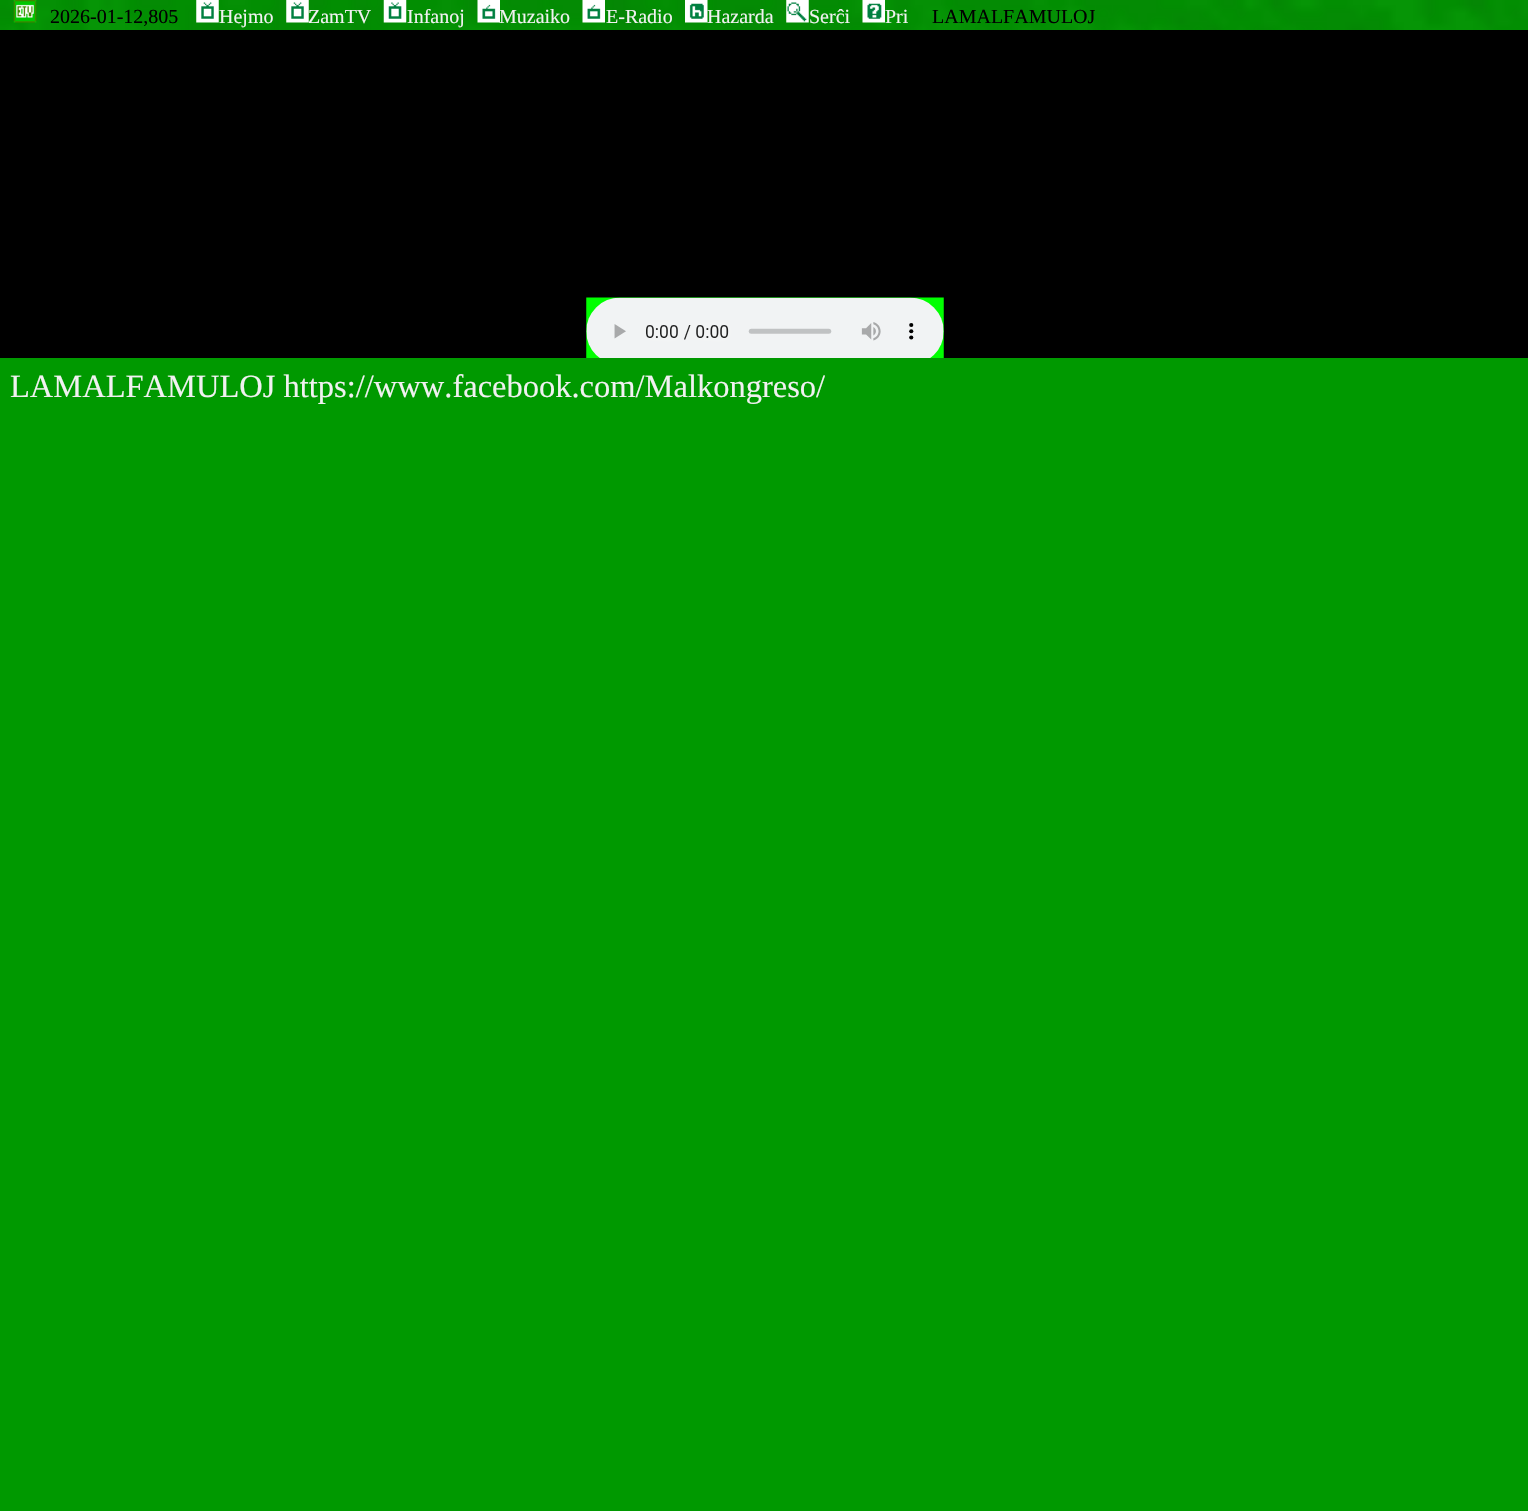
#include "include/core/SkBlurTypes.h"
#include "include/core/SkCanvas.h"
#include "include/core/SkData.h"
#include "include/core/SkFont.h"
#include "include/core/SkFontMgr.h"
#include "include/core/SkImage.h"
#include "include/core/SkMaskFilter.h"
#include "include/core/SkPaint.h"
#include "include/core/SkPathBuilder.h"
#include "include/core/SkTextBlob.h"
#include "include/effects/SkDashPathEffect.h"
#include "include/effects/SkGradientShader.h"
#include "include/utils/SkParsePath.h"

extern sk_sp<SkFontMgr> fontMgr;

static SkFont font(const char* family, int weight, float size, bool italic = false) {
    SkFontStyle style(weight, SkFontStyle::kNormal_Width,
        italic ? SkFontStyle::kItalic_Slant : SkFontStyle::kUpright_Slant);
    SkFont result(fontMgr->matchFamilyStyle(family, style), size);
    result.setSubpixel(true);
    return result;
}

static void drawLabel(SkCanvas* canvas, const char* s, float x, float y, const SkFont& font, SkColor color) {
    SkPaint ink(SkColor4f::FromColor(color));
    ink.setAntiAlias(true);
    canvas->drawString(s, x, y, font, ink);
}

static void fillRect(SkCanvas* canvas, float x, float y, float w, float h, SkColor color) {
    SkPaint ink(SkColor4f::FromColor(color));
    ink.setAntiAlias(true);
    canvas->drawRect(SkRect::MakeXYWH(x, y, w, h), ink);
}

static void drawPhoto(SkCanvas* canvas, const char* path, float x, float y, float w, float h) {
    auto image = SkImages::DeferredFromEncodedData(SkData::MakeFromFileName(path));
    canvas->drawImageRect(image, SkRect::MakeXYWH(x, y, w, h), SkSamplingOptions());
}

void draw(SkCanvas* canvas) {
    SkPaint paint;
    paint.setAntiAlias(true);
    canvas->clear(0xFF000000);
    drawPhoto(canvas, "assets/img1.png", 0, 0, 1528, 30);
    drawPhoto(canvas, "assets/img2.png", 13, 0, 24, 23);
    SkFont font1 = font("Liberation Serif", 400, 20);
    drawLabel(canvas, "2026-01-12,805", 50, 23, font1, 0xFF000000);
    drawPhoto(canvas, "assets/img3.png", 196, 0, 23, 23);
    drawLabel(canvas, "Hejmo", 219, 23, font1, 0xFFF1F1F1);
    drawPhoto(canvas, "assets/img4.png", 286, 0, 23, 23);
    drawLabel(canvas, "ZamTV", 308, 23, font1, 0xFFF1F1F1);
    drawPhoto(canvas, "assets/img5.png", 383, 0, 24, 23);
    drawLabel(canvas, "Infanoj", 407, 23, font1, 0xFFF1F1F1);
    drawPhoto(canvas, "assets/img6.png", 477, 0, 23, 23);
    drawLabel(canvas, "Muzaiko", 499, 23, font1, 0xFFF1F1F1);
    drawPhoto(canvas, "assets/img7.png", 582, 0, 23, 23);
    drawLabel(canvas, "E-Radio", 606, 23, font1, 0xFFF1F1F1);
    drawPhoto(canvas, "assets/img8.png", 685, 0, 23, 23);
    drawLabel(canvas, "Hazarda", 707, 23, font1, 0xFFF1F1F1);
    drawPhoto(canvas, "assets/img9.png", 786, 0, 23, 23);
    drawLabel(canvas, "Serĉi", 809, 23, font1, 0xFFF1F1F1);
    drawPhoto(canvas, "assets/img10.png", 862, 0, 23, 23);
    drawLabel(canvas, "Pri", 885, 23, font1, 0xFFF1F1F1);
    drawLabel(canvas, "LAMALFAMULOJ", 932, 23, font1, 0xFF000000);
    drawPhoto(canvas, "assets/img11.png", 374, 297, 782, 61);
    fillRect(canvas, 0, 358, 1528, 1153, 0xFF009900);
    SkFont font2 = font("Liberation Serif", 400, 32.5f);
    drawLabel(canvas, "LAMALFAMULOJ https://www.facebook.com/Malkongreso/", 10, 397, font2, 0xFFF1F1F1);
}
